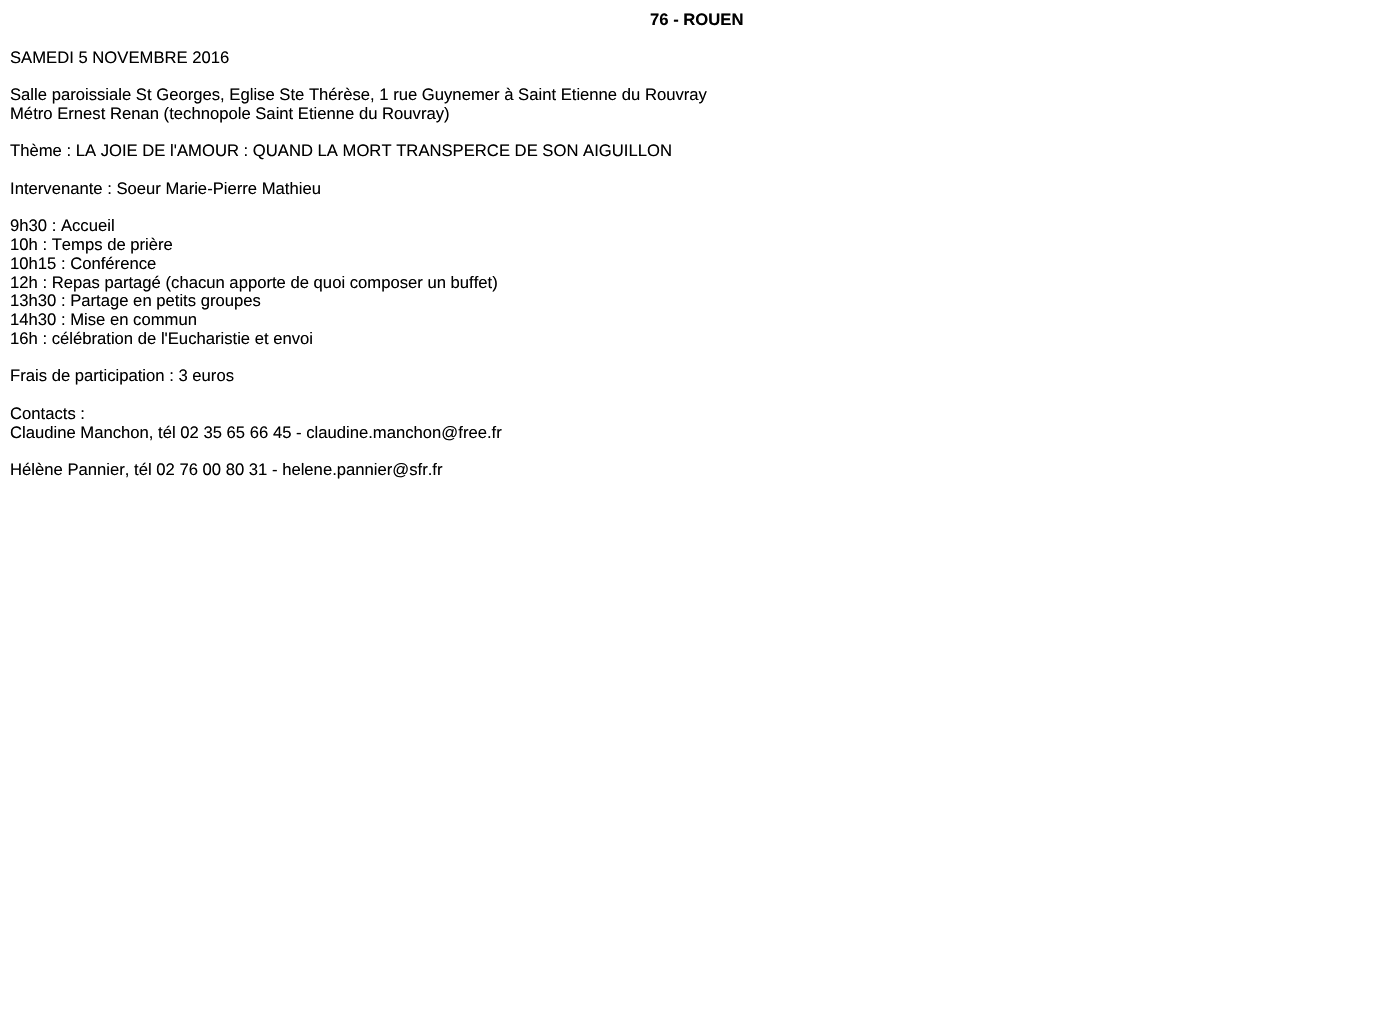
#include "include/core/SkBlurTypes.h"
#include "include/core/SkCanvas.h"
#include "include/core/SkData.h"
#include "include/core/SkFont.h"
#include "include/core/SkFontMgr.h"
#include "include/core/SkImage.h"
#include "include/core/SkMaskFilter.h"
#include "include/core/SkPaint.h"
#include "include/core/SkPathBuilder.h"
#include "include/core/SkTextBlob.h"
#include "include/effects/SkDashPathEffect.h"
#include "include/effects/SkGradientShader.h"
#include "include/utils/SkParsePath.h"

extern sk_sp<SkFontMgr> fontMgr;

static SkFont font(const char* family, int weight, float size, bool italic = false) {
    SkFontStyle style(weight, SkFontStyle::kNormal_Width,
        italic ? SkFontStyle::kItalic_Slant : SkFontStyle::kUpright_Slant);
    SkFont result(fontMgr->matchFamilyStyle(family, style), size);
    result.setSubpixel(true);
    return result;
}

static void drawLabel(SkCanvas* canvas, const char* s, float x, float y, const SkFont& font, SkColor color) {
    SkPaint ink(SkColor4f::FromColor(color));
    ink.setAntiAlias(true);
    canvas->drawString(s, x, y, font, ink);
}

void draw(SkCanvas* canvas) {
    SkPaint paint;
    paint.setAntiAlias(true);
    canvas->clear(0xFFFFFFFF);
    SkFont font1 = font("Liberation Sans", 700, 16.65f);
    drawLabel(canvas, "76 - ROUEN", 650, 25, font1, 0xFF000000);
    SkFont font2 = font("Liberation Sans", 400, 16.65f);
    drawLabel(canvas, "SAMEDI 5 NOVEMBRE 2016", 10, 63, font2, 0xFF000000);
    drawLabel(canvas, "Salle paroissiale St Georges, Eglise Ste Thérèse, 1 rue Guynemer à Saint Etienne du Rouvray", 10, 100, font2, 0xFF000000);
    drawLabel(canvas, "Métro Ernest Renan (technopole Saint Etienne du Rouvray)", 10, 119, font2, 0xFF000000);
    drawLabel(canvas, "Thème : LA JOIE DE l'AMOUR : QUAND LA MORT TRANSPERCE DE SON AIGUILLON", 10, 156, font2, 0xFF000000);
    drawLabel(canvas, "Intervenante : Soeur Marie-Pierre Mathieu", 10, 194, font2, 0xFF000000);
    drawLabel(canvas, "9h30 : Accueil", 10, 231, font2, 0xFF000000);
    drawLabel(canvas, "10h : Temps de prière", 10, 250, font2, 0xFF000000);
    drawLabel(canvas, "10h15 : Conférence", 10, 269, font2, 0xFF000000);
    drawLabel(canvas, "12h : Repas partagé (chacun apporte de quoi composer un buffet)", 10, 288, font2, 0xFF000000);
    drawLabel(canvas, "13h30 : Partage en petits groupes", 10, 306, font2, 0xFF000000);
    drawLabel(canvas, "14h30 : Mise en commun", 10, 325, font2, 0xFF000000);
    drawLabel(canvas, "16h : célébration de l'Eucharistie et envoi", 10, 344, font2, 0xFF000000);
    drawLabel(canvas, "Frais de participation : 3 euros", 10, 381, font2, 0xFF000000);
    drawLabel(canvas, "Contacts :", 10, 419, font2, 0xFF000000);
    drawLabel(canvas, "Claudine Manchon, tél 02 35 65 66 45 - claudine.manchon@free.fr", 10, 438, font2, 0xFF000000);
    drawLabel(canvas, "Hélène Pannier, tél 02 76 00 80 31 - helene.pannier@sfr.fr", 10, 475, font2, 0xFF000000);
}
